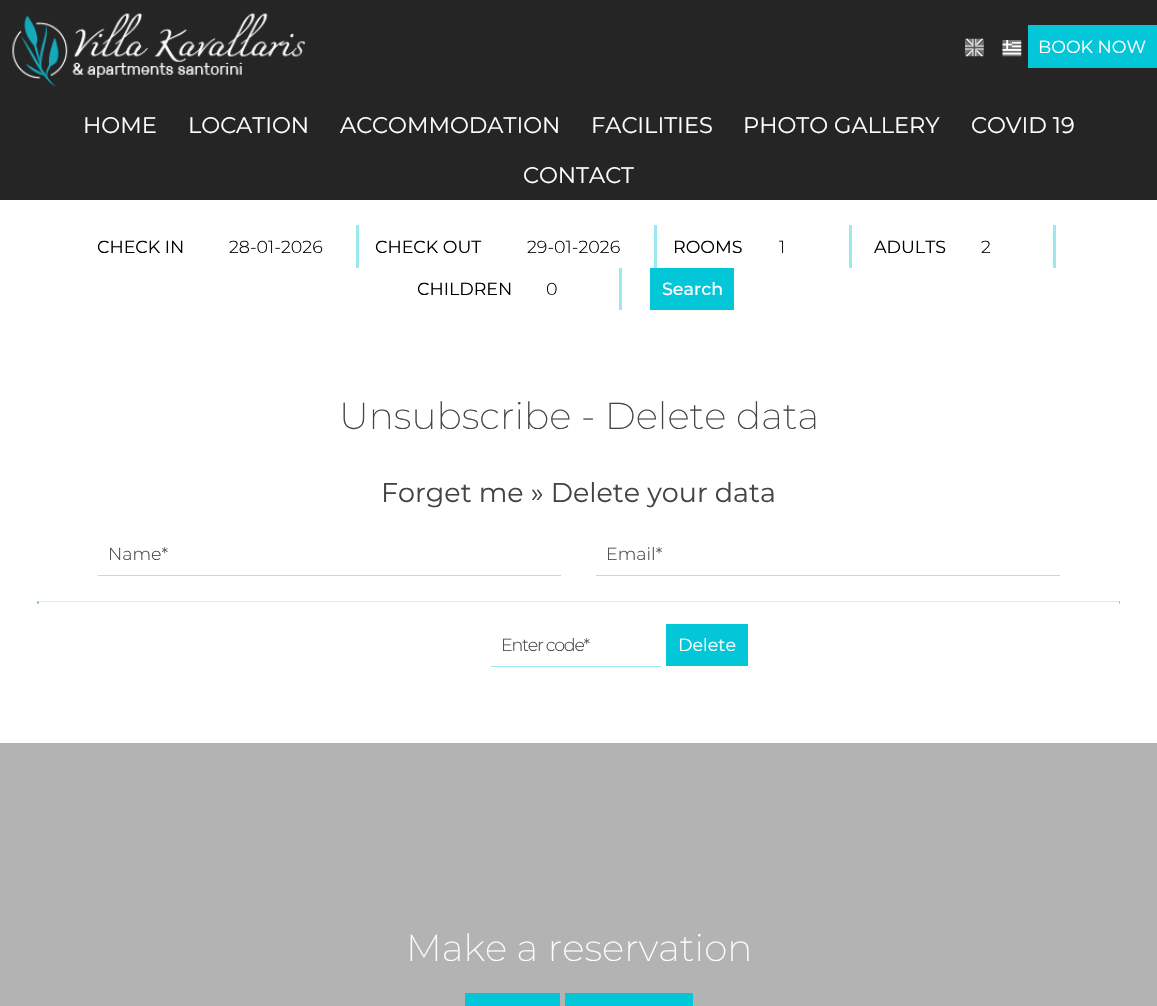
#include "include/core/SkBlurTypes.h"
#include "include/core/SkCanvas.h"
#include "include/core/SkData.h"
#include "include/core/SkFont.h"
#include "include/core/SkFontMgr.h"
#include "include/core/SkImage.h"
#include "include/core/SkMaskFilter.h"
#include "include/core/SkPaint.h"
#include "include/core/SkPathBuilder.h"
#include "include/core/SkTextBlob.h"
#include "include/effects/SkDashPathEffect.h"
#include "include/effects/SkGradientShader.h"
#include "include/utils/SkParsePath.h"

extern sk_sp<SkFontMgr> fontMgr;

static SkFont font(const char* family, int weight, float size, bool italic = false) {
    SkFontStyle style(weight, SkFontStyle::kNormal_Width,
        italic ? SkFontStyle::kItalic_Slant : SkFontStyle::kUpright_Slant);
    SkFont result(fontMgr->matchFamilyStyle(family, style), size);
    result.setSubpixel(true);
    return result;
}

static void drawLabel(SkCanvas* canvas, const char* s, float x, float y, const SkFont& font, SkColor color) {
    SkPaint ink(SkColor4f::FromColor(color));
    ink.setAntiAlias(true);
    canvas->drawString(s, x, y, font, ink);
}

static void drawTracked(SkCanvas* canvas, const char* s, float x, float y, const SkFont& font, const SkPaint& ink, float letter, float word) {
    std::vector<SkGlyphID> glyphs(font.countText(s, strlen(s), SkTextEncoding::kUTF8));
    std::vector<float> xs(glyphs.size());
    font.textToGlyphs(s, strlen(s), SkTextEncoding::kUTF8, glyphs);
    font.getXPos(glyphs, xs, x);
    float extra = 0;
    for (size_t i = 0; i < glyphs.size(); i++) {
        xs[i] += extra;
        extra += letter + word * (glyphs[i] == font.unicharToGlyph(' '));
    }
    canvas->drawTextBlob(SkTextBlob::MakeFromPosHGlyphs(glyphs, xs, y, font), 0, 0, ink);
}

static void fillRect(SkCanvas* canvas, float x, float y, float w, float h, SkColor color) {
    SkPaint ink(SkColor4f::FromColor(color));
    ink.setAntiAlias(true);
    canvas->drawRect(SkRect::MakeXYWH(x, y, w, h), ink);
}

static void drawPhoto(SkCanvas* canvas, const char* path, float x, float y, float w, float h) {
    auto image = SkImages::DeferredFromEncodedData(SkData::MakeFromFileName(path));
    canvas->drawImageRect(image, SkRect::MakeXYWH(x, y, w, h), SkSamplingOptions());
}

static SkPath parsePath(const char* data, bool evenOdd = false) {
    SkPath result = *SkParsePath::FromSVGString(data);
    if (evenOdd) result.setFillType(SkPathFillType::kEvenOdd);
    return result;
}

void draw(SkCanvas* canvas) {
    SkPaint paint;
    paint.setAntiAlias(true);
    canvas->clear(0xFFFFFFFF);
    fillRect(canvas, 0, 0, 1157, 200, 0xFF252525);
    drawPhoto(canvas, "assets/img1.png", 12, 13, 293, 74);
    drawPhoto(canvas, "assets/img2.png", 965, 38, 19, 19);
    drawPhoto(canvas, "assets/img3.png", 1002, 40, 20, 17);
    fillRect(canvas, 1028, 25, 129, 43, 0xFF03C7D9);
    SkFont font1 = font("Montserrat", 400, 17.5f);
    drawLabel(canvas, "BOOK NOW", 1038, 53, font1, 0xFFFFFFFF);
    SkFont font2 = font("Montserrat", 400, 22.5f);
    drawLabel(canvas, "HOME", 83, 133, font2, 0xFFFFFFFF);
    drawLabel(canvas, "LOCATION", 188, 133, font2, 0xFFFFFFFF);
    drawLabel(canvas, "ACCOMMODATION", 340, 133, font2, 0xFFFFFFFF);
    drawLabel(canvas, "FACILITIES", 591, 133, font2, 0xFFFFFFFF);
    drawLabel(canvas, "PHOTO GALLERY", 743, 133, font2, 0xFFFFFFFF);
    drawLabel(canvas, "COVID 19", 971, 133, font2, 0xFFFFFFFF);
    drawLabel(canvas, "CONTACT", 523, 183, font2, 0xFFFFFFFF);
    drawLabel(canvas, "CHECK IN", 97, 253, font1, 0xFF000000);
    fillRect(canvas, 356, 225, 3, 43, 0xFF9AE9F0);
    SkFont font3 = font("Montserrat", 300, 17.5f);
    drawLabel(canvas, "28-01-2026", 229, 253, font3, 0xFF000000);
    drawLabel(canvas, "CHECK OUT", 375, 253, font1, 0xFF000000);
    fillRect(canvas, 654, 225, 3, 43, 0xFF9AE9F0);
    drawLabel(canvas, "29-01-2026", 527, 253, font3, 0xFF000000);
    drawLabel(canvas, "ROOMS", 673, 253, font1, 0xFF000000);
    fillRect(canvas, 849, 225, 3, 43, 0xFF9AE9F0);
    drawLabel(canvas, "1", 779, 253, font3, 0xFF000000);
    drawLabel(canvas, "ADULTS", 874, 253, font1, 0xFF000000);
    fillRect(canvas, 1053, 225, 3, 43, 0xFF9AE9F0);
    drawLabel(canvas, "2", 981, 253, font3, 0xFF000000);
    drawLabel(canvas, "CHILDREN", 417, 295, font1, 0xFF000000);
    fillRect(canvas, 619, 268, 3, 42, 0xFF9AE9F0);
    drawLabel(canvas, "0", 546, 295, font3, 0xFF000000);
    fillRect(canvas, 650, 268, 84, 42, 0xFF03C7D9);
    SkFont font4 = font("Montserrat", 500, 17.5f);
    drawLabel(canvas, "Search", 662, 295, font4, 0xFFFFFFFF);
    SkFont font5 = font("Montserrat", 200, 37.5f);
    drawLabel(canvas, "Unsubscribe - Delete data", 339, 429, font5, 0xFF444444);
    SkFont font6 = font("Montserrat", 400, 27);
    drawLabel(canvas, "Forget me » Delete your data", 381, 502, font6, 0xFF444444);
    fillRect(canvas, 98, 575, 463, 1, 0xFF9AE9F0);
    drawLabel(canvas, "Name*", 108, 560, font3, 0xFF444444);
    fillRect(canvas, 596, 575, 464, 1, 0xFF9AE9F0);
    drawLabel(canvas, "Email*", 606, 560, font3, 0xFF444444);
    paint.setColor(0xFFE6E6E6);
    canvas->drawPath(parsePath("M38 601H1120L1119 602H39Z"), paint);
    paint.setColor(0xFF03C7D9);
    canvas->drawPath(parsePath("M1120 601V604L1119 602.5Z"), paint);
    paint.setColor(0x1AFFFFFF);
    canvas->drawPath(parsePath("M1120 604H38L39 602H1119Z"), paint);
    paint.setColor(0xFF028591);
    canvas->drawPath(parsePath("M37.5 604V601L39 602.5Z"), paint);
    fillRect(canvas, 491, 666, 170, 1, 0xFF9AE9F0);
    paint.setColor(0xFF444444);
    drawTracked(canvas, "Enter code*", 501, 651, font3, paint, -1.25f, 0);
    fillRect(canvas, 666, 624, 82, 42, 0xFF03C7D9);
    drawLabel(canvas, "Delete", 678, 651, font1, 0xFFFFFFFF);
    fillRect(canvas, 0, 743, 1157, 263, 0xFFB3B3B3);
    drawLabel(canvas, "Make a reservation", 406, 961, font5, 0xFFFFFFFF);
    fillRect(canvas, 465, 993, 95, 13, 0xFF03C7D9);
    fillRect(canvas, 565, 993, 128, 13, 0xFF03C7D9);
}
